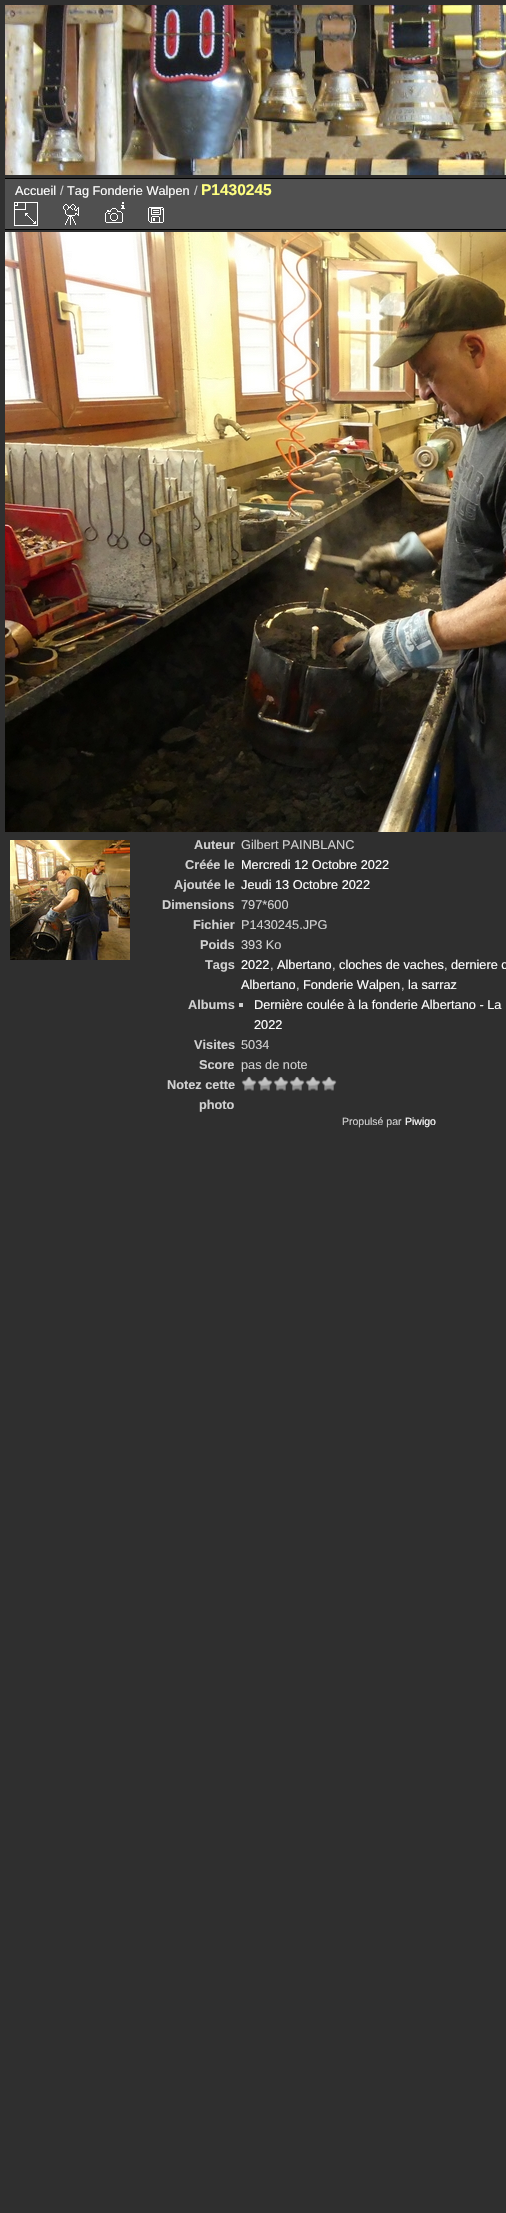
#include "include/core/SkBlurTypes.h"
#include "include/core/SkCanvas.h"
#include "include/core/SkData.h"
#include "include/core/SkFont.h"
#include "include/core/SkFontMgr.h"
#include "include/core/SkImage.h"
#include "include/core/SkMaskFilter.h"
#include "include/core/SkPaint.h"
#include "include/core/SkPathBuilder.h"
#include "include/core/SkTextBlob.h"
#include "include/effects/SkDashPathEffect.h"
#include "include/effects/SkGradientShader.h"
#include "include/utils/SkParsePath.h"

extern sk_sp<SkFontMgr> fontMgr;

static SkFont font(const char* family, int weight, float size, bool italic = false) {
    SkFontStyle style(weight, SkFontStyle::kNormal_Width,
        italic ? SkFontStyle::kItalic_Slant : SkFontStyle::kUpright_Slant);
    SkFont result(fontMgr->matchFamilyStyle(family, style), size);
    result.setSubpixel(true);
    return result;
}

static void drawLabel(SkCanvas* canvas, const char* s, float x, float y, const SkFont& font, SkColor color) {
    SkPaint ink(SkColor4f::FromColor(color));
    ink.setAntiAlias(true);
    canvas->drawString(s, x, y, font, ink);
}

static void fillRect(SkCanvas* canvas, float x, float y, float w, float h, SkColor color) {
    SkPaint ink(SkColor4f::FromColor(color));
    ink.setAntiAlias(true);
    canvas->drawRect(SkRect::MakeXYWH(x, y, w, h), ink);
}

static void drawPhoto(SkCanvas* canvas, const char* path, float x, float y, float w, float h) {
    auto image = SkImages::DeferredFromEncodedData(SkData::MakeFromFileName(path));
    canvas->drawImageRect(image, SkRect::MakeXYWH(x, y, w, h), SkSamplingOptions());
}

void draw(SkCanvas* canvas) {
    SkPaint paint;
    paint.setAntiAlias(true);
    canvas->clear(0xFF2F2F2F);
    drawPhoto(canvas, "assets/img1.png", 5, 5, 501, 170);
    fillRect(canvas, 5, 179, 501, 50, 0xFF505050);
    fillRect(canvas, 5, 229, 501, 1, 0xFF000000);
    drawPhoto(canvas, "assets/img2.png", 14, 202, 24, 24);
    drawPhoto(canvas, "assets/img3.png", 63, 204, 16, 21);
    drawPhoto(canvas, "assets/img4.png", 105, 202, 20, 21);
    drawPhoto(canvas, "assets/img5.png", 148, 207, 16, 16);
    fillRect(canvas, 5, 178, 501, 1, 0xFF000000);
    SkFont font1 = font("Liberation Sans", 400, 12.75f);
    drawLabel(canvas, "Accueil", 15, 195, font1, 0xFFFFFFFF);
    drawLabel(canvas, "/", 60, 195, font1, 0xFFD0D0D0);
    drawLabel(canvas, "Tag Fonderie Walpen", 67, 195, font1, 0xFFFFFFFF);
    drawLabel(canvas, "/", 194, 195, font1, 0xFFD0D0D0);
    SkFont font2 = font("Liberation Sans", 700, 15.5f);
    drawLabel(canvas, "P1430245", 201, 195, font2, 0xFFFFFF80);
    drawPhoto(canvas, "assets/img6.png", 5, 232, 501, 600);
    drawPhoto(canvas, "assets/img7.png", 10, 840, 120, 120);
    SkFont font3 = font("Liberation Sans", 700, 12.75f);
    drawLabel(canvas, "Auteur", 194, 849, font3, 0xFFD0D0D0);
    drawLabel(canvas, "Gilbert PAINBLANC", 241, 849, font1, 0xFFD0D0D0);
    drawLabel(canvas, "Créée le", 185, 869, font3, 0xFFD0D0D0);
    drawLabel(canvas, "Mercredi 12 Octobre 2022", 241, 869, font1, 0xFFFFFFFF);
    drawLabel(canvas, "Ajoutée le", 174, 889, font3, 0xFFD0D0D0);
    drawLabel(canvas, "Jeudi 13 Octobre 2022", 241, 889, font1, 0xFFFFFFFF);
    drawLabel(canvas, "Dimensions", 162, 909, font3, 0xFFD0D0D0);
    drawLabel(canvas, "797*600", 241, 909, font1, 0xFFD0D0D0);
    drawLabel(canvas, "Fichier", 193, 929, font3, 0xFFD0D0D0);
    drawLabel(canvas, "P1430245.JPG", 241, 929, font1, 0xFFD0D0D0);
    drawLabel(canvas, "Poids", 200, 949, font3, 0xFFD0D0D0);
    drawLabel(canvas, "393 Ko", 241, 949, font1, 0xFFD0D0D0);
    drawLabel(canvas, "Tags", 205, 969, font3, 0xFFD0D0D0);
    drawLabel(canvas, "2022", 241, 969, font1, 0xFFFFFFFF);
    drawLabel(canvas, ",", 270, 969, font1, 0xFFD0D0D0);
    drawLabel(canvas, "Albertano", 277, 969, font1, 0xFFFFFFFF);
    drawLabel(canvas, ",", 332, 969, font1, 0xFFD0D0D0);
    drawLabel(canvas, "cloches de vaches", 339, 969, font1, 0xFFFFFFFF);
    drawLabel(canvas, ",", 444, 969, font1, 0xFFD0D0D0);
    drawLabel(canvas, "derniere c", 451, 969, font1, 0xFFFFFFFF);
    drawLabel(canvas, "Albertano", 241, 989, font1, 0xFFFFFFFF);
    drawLabel(canvas, ",", 296, 989, font1, 0xFFD0D0D0);
    drawLabel(canvas, "Fonderie Walpen", 303, 989, font1, 0xFFFFFFFF);
    drawLabel(canvas, ",", 401, 989, font1, 0xFFD0D0D0);
    drawLabel(canvas, "la sarraz", 408, 989, font1, 0xFFFFFFFF);
    drawLabel(canvas, "Albums", 188, 1009, font3, 0xFFD0D0D0);
    fillRect(canvas, 239, 1003, 4, 4, 0xFFD0D0D0);
    drawLabel(canvas, "Dernière coulée à la fonderie Albertano - La", 254, 1009, font1, 0xFFFFFFFF);
    drawLabel(canvas, "2022", 254, 1029, font1, 0xFFFFFFFF);
    drawLabel(canvas, "Visites", 194, 1049, font3, 0xFFD0D0D0);
    drawLabel(canvas, "5034", 241, 1049, font1, 0xFFD0D0D0);
    drawLabel(canvas, "Score", 199, 1069, font3, 0xFFD0D0D0);
    drawLabel(canvas, "pas de note", 241, 1069, font1, 0xFFD0D0D0);
    drawLabel(canvas, "Notez cette", 167, 1089, font3, 0xFFD0D0D0);
    drawLabel(canvas, "photo", 199, 1109, font3, 0xFFD0D0D0);
    drawPhoto(canvas, "assets/img8.png", 241, 1077, 16, 14);
    drawPhoto(canvas, "assets/img8.png", 257, 1077, 16, 14);
    drawPhoto(canvas, "assets/img8.png", 273, 1077, 16, 14);
    drawPhoto(canvas, "assets/img8.png", 289, 1077, 16, 14);
    drawPhoto(canvas, "assets/img8.png", 305, 1077, 16, 14);
    drawPhoto(canvas, "assets/img8.png", 321, 1077, 16, 14);
    SkFont font4 = font("Liberation Sans", 400, 10.5f);
    drawLabel(canvas, "Propulsé par", 342, 1125, font4, 0xFFD0D0D0);
    drawLabel(canvas, "Piwigo", 405, 1125, font4, 0xFFFFFFFF);
}
